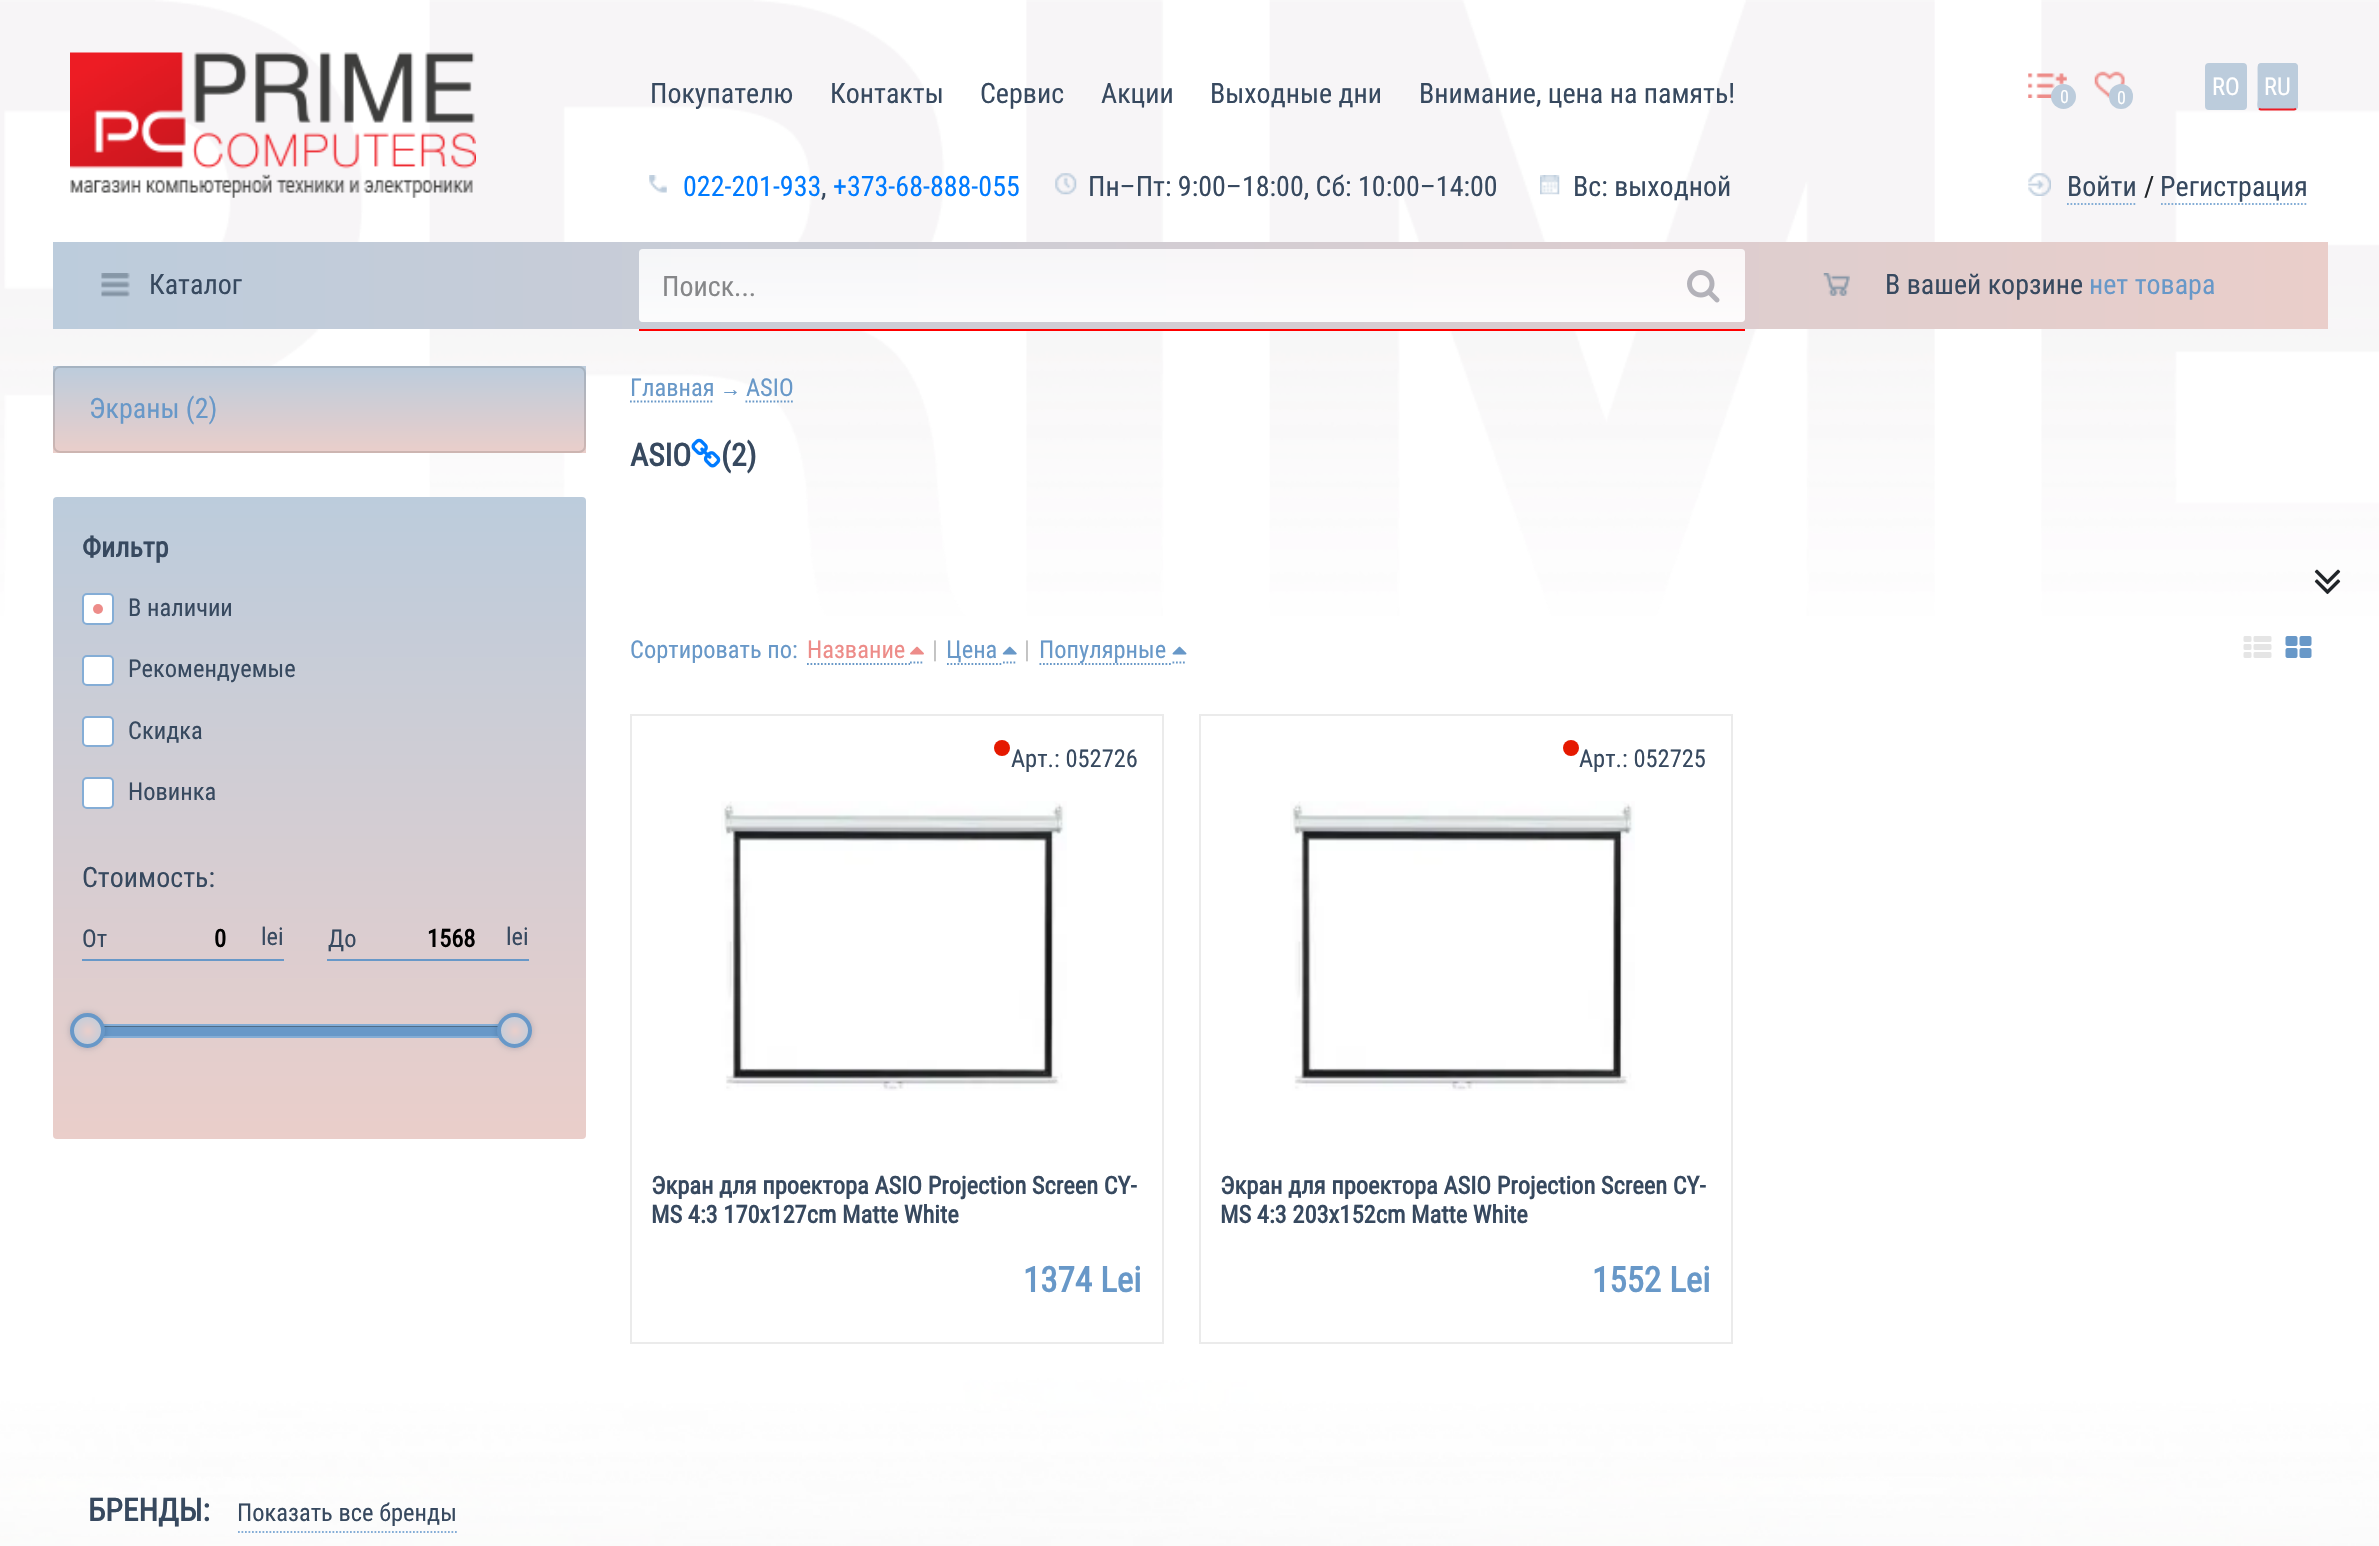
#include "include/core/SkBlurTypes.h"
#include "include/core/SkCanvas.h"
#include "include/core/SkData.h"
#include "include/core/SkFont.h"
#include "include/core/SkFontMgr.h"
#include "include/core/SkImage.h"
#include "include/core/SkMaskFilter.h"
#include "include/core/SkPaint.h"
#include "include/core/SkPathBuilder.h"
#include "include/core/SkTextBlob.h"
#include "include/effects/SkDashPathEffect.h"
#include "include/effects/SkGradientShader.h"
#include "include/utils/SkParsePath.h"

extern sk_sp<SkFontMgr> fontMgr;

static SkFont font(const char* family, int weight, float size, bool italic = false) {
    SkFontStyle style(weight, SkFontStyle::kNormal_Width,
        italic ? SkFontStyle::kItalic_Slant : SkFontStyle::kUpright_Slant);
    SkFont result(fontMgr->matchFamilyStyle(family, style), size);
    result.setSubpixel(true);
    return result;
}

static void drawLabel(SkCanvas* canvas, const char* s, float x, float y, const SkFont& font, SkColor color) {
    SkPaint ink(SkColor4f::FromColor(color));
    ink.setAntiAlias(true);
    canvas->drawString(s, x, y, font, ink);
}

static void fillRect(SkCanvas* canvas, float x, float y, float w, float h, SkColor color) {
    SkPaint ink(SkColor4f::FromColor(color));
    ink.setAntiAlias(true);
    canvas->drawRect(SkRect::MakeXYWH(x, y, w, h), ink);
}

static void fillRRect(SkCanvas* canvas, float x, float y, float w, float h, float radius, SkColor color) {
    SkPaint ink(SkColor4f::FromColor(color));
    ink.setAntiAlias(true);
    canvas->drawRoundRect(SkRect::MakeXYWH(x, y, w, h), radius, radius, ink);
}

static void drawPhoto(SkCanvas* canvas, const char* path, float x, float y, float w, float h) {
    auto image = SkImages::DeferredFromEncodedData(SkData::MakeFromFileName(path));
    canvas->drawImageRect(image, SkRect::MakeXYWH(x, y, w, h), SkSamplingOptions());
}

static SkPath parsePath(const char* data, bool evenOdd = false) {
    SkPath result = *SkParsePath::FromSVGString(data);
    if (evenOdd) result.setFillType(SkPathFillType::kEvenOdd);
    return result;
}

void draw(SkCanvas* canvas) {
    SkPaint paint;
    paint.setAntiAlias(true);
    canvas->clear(0xFFFFFFFF);
    drawPhoto(canvas, "assets/img1.png", 0, 0, 2379, 1546);
    drawPhoto(canvas, "assets/img2.png", 70, 52, 406, 146);
    SkFont font1 = font("Roboto Condensed", 400, 28);
    drawLabel(canvas, "Покупателю", 650, 103, font1, 0xFF37495F);
    drawLabel(canvas, "Контакты", 830, 103, font1, 0xFF37495F);
    drawLabel(canvas, "Сервис", 980, 103, font1, 0xFF37495F);
    drawLabel(canvas, "Акции", 1101, 103, font1, 0xFF37495F);
    drawLabel(canvas, "Выходные дни", 1210, 103, font1, 0xFF37495F);
    drawLabel(canvas, "Внимание, цена на память!", 1419, 103, font1, 0xFF37495F);
    drawPhoto(canvas, "assets/img3.png", 649, 175, 18, 18);
    drawLabel(canvas, "022-201-933", 683, 196, font1, 0xFF007BFF);
    drawLabel(canvas, ",", 821, 196, font1, 0xFF37495F);
    drawLabel(canvas, "+373-68-888-055", 833, 196, font1, 0xFF007BFF);
    drawPhoto(canvas, "assets/img4.png", 1055, 173, 22, 22);
    drawLabel(canvas, "Пн–Пт: 9:00–18:00, Сб: 10:00–14:00", 1088, 196, font1, 0xFF37495F);
    drawPhoto(canvas, "assets/img5.png", 1540, 175, 20, 20);
    drawLabel(canvas, "Вс: выходной", 1573, 196, font1, 0xFF37495F);
    paint.setColor(0xFFBCCCDC);
    canvas->drawRoundRect(SkRect::MakeXYWH(2206, 64, 40, 45), 3, 3, paint);
    paint.setStroke(true);
    paint.setStrokeWidth(2);
    canvas->drawRoundRect(SkRect::MakeXYWH(2206, 64, 40, 45), 3, 3, paint);
    SkFont font2 = font("Roboto Condensed", 400, 24.5f);
    drawLabel(canvas, "RO", 2212, 95, font2, 0xFFFFFFFF);
    fillRRect(canvas, 2258, 63, 40, 47, 4, 0xFFBCCCDC);
    paint.setStrokeWidth(1.8f);
    paint.setColor(0xFFED1C24);
    canvas->drawPath(parsePath("M2296 108.5C2295.5 109 2295 109.5 2294 109.5H2261C2260.5 109.5 2259.5 109 2259 108.5"), paint);
    paint.setColor(0xFFBCCCDC);
    canvas->drawPath(parsePath("M2259 108.5C2257.5 107 2258.5 100.5 2258.5 100V73C2258.5 63.5 2257 64 2266.5 64H2288.5C2298 64 2297 63.5 2297 73V100C2297 100.5 2298 107 2296 108.5"), paint);
    drawLabel(canvas, "RU", 2264, 95, font2, 0xFFFFFFFF);
    drawPhoto(canvas, "assets/img6.png", 2028, 73, 39, 25);
    paint.setStroke(false);
    canvas->drawCircle(2063.5f, 96.5f, 12.5f, paint);
    SkFont font3 = font("Roboto Condensed", 400, 18);
    drawLabel(canvas, "0", 2060, 103, font3, 0xFFFFFFFF);
    drawPhoto(canvas, "assets/img7.png", 2094, 71, 31, 27);
    fillRRect(canvas, 2109, 84, 24, 25, 12, 0xFFBCCCDC);
    drawLabel(canvas, "0", 2117, 104, font3, 0xFFFFFFFF);
    drawPhoto(canvas, "assets/img8.png", 2028, 173, 23, 23);
    drawLabel(canvas, "Войти", 2067, 196, font1, 0xFF37495F);
    paint.setStroke(true);
    paint.setColor(0xFF84ADD6);
    paint.setPathEffect(SkDashPathEffect::Make({{1.75f, 1.75f}}, 0));
    canvas->drawPath(parsePath("M2067 204H2137"), paint);
    paint.setPathEffect(nullptr);
    drawLabel(canvas, "/", 2144, 196, font1, 0xFF212529);
    drawLabel(canvas, "Регистрация", 2160, 196, font1, 0xFF37495F);
    paint.setPathEffect(SkDashPathEffect::Make({{1.75f, 1.75f}}, 0));
    canvas->drawPath(parsePath("M2161 204H2308"), paint);
    paint.setPathEffect(nullptr);
    paint.setStroke(false);
    {
        const SkColor colors[] = {0xFFBCCCDC, 0xFFEACECA};
        const float stops[] = {0, 1};
        const SkPoint ends[] = {{53, 285}, {2328, 285}};
        paint.setShader(SkGradientShader::MakeLinear(ends, colors, stops, 2, SkTileMode::kClamp));
        paint.setAlpha(255);
    }
    canvas->drawRect(SkRect::MakeXYWH(53, 242, 2275, 87), paint);
    drawPhoto(canvas, "assets/img9.png", 101, 273, 29, 24);
    drawLabel(canvas, "Каталог", 149, 294, font1, 0xFF37495F);
    fillRRect(canvas, 639, 249, 1106, 73, 4, 0xCCFFFFFF);
    {
        const SkColor colors[] = {0xA3FFFFFF, 0x1FFFFFFF};
        const float stops[] = {0, 1};
        const SkPoint ends[] = {{1192, 322}, {1192, 249}};
        paint.setShader(SkGradientShader::MakeLinear(ends, colors, stops, 2, SkTileMode::kClamp));
        paint.setAlpha(255);
    }
    canvas->drawRoundRect(SkRect::MakeXYWH(639, 249, 1106, 73), 4, 4, paint);
    drawLabel(canvas, "Поиск...", 662, 296, font1, 0xFF868789);
    drawPhoto(canvas, "assets/img10.png", 1687, 270, 33, 33);
    fillRect(canvas, 639, 329, 1106, 2, 0xFFFF0000);
    drawPhoto(canvas, "assets/img11.png", 1823, 273, 27, 23);
    drawLabel(canvas, "В вашей корзине", 1885, 294, font1, 0xFF37495F);
    drawLabel(canvas, "нет товара", 2089, 294, font1, 0xFF6898C8);
    {
        const SkColor colors[] = {0xFFBCCCDC, 0xFFEACECA};
        const float stops[] = {0, 1};
        const SkPoint ends[] = {{319, 366}, {319, 453}};
        paint.setShader(SkGradientShader::MakeLinear(ends, colors, stops, 2, SkTileMode::kClamp));
        paint.setAlpha(255);
    }
    canvas->drawRect(SkRect::MakeXYWH(53, 366, 533, 87), paint);
    paint.setStroke(true);
    paint.setStrokeWidth(2);
    paint.setShader(nullptr);
    paint.setColor(0x1F000000);
    canvas->drawRoundRect(SkRect::MakeXYWH(54, 367, 531, 85), 6, 6, paint);
    drawLabel(canvas, "Экраны (2)", 89, 418, font1, 0xFF6898C8);
    paint.setStroke(false);
    {
        const SkColor colors[] = {0xFFBCCCDC, 0xFFEACECA};
        const float stops[] = {0, 1};
        const SkPoint ends[] = {{319, 497}, {319, 1139}};
        paint.setShader(SkGradientShader::MakeLinear(ends, colors, stops, 2, SkTileMode::kClamp));
        paint.setAlpha(255);
    }
    canvas->drawRoundRect(SkRect::MakeXYWH(53, 497, 533, 642), 4, 4, paint);
    SkFont font4 = font("Roboto Condensed", 700, 28);
    drawLabel(canvas, "Фильтр", 82, 557, font4, 0xFF37495F);
    paint.setShader(nullptr);
    paint.setColor(0xFFFFFFFF);
    canvas->drawRoundRect(SkRect::MakeXYWH(83, 594, 30, 30), 4, 4, paint);
    paint.setStroke(true);
    paint.setColor(0xFF84ADD6);
    canvas->drawRoundRect(SkRect::MakeXYWH(83, 594, 30, 30), 4, 4, paint);
    paint.setStroke(false);
    paint.setColor(0xFFED8C89);
    canvas->drawCircle(98, 609, 5, paint);
    drawLabel(canvas, "В наличии", 128, 616, font2, 0xFF37495F);
    paint.setColor(0xFFFFFFFF);
    canvas->drawRoundRect(SkRect::MakeXYWH(83, 656, 30, 29), 4, 4, paint);
    paint.setStroke(true);
    paint.setColor(0xFF84ADD6);
    canvas->drawRoundRect(SkRect::MakeXYWH(83, 656, 30, 29), 4, 4, paint);
    drawLabel(canvas, "Рекомендуемые", 128, 677, font2, 0xFF37495F);
    paint.setStroke(false);
    paint.setColor(0xFFFFFFFF);
    canvas->drawRoundRect(SkRect::MakeXYWH(83, 717, 30, 29), 4, 4, paint);
    paint.setStroke(true);
    paint.setColor(0xFF84ADD6);
    canvas->drawRoundRect(SkRect::MakeXYWH(83, 717, 30, 29), 4, 4, paint);
    drawLabel(canvas, "Скидка", 128, 739, font2, 0xFF37495F);
    paint.setStroke(false);
    paint.setColor(0xFFFFFFFF);
    canvas->drawRoundRect(SkRect::MakeXYWH(83, 778, 30, 30), 4, 4, paint);
    paint.setStroke(true);
    paint.setColor(0xFF84ADD6);
    canvas->drawRoundRect(SkRect::MakeXYWH(83, 778, 30, 30), 4, 4, paint);
    drawLabel(canvas, "Новинка", 128, 800, font2, 0xFF37495F);
    drawLabel(canvas, "Стоимость:", 82, 887, font1, 0xFF37495F);
    fillRect(canvas, 82, 959, 202, 2, 0xFF6898C8);
    drawLabel(canvas, "От", 82, 947, font2, 0xFF37495F);
    SkFont font5 = font("Roboto Condensed", 700, 24.5f);
    drawLabel(canvas, "0", 214, 947, font5, 0xFF000000);
    drawLabel(canvas, "lei", 261, 945, font2, 0xFF37495F);
    fillRect(canvas, 327, 959, 202, 2, 0xFF6898C8);
    drawLabel(canvas, "До", 328, 947, font2, 0xFF37495F);
    drawLabel(canvas, "1568", 427, 947, font5, 0xFF000000);
    drawLabel(canvas, "lei", 506, 945, font2, 0xFF37495F);
    canvas->drawRect(SkRect::MakeXYWH(83, 1025, 429, 12), paint);
    fillRect(canvas, 104, 1026, 394, 10, 0xFF6898C8);
    paint.setStroke(false);
    paint.setColor(0x591F1C16);
    canvas->drawPath(parsePath("M91 1027H508H510C509 1027 507 1026 506 1026H89C84 1026 82 1033 87 1036C85 1032 87 1027 91 1027Z"), paint);
    paint.setColor(0x3800254A);
    paint.setMaskFilter(SkMaskFilter::MakeBlur(kNormal_SkBlurStyle, 3.5f));
    canvas->drawRoundRect(SkRect::MakeXYWH(70, 1013, 35, 35), 17.5f, 17.5f, paint);
    paint.setMaskFilter(nullptr);
    canvas->save();
    canvas->clipPath(parsePath("M87.5 1013C97 1013 105 1021 105 1030.5C105 1040 97 1048 87.5 1048C78 1048 70 1040 70 1030.5C70 1021 78 1013 87.5 1013Z"), true);
    {
        const SkColor colors[] = {0xFFEACECA, 0xFFBCCCDC};
        const float stops[] = {0, 1};
        paint.setShader(SkGradientShader::MakeRadial({88, 1031}, 18, colors, stops, 2, SkTileMode::kClamp));
        paint.setAlpha(255);
    }
    canvas->drawRect(SkRect::MakeXYWH(74, 1017, 28, 28), paint);
    canvas->restore();
    paint.setStroke(true);
    paint.setStrokeWidth(4);
    paint.setShader(nullptr);
    paint.setColor(0xFF6898C8);
    canvas->drawCircle(87.5f, 1030.5f, 15.5f, paint);
    paint.setStroke(false);
    paint.setColor(0x3800254A);
    paint.setMaskFilter(SkMaskFilter::MakeBlur(kNormal_SkBlurStyle, 3.5f));
    canvas->drawRoundRect(SkRect::MakeXYWH(497, 1013, 35, 35), 17.5f, 17.5f, paint);
    paint.setMaskFilter(nullptr);
    canvas->save();
    canvas->clipPath(parsePath("M514.5 1013C524 1013 532 1021 532 1030.5C532 1040 524 1048 514.5 1048C505 1048 497 1040 497 1030.5C497 1021 505 1013 514.5 1013Z"), true);
    {
        const SkColor colors[] = {0xFFEACECA, 0xFFBCCCDC};
        const float stops[] = {0, 1};
        paint.setShader(SkGradientShader::MakeRadial({515, 1031}, 18, colors, stops, 2, SkTileMode::kClamp));
        paint.setAlpha(255);
    }
    canvas->drawRect(SkRect::MakeXYWH(501, 1017, 28, 28), paint);
    canvas->restore();
    paint.setStroke(true);
    paint.setShader(nullptr);
    paint.setColor(0xFF6898C8);
    canvas->drawCircle(514.5f, 1030.5f, 15.5f, paint);
    drawLabel(canvas, "Главная", 630, 396, font2, 0xFF6898C8);
    paint.setStrokeWidth(1.8f);
    paint.setPathEffect(SkDashPathEffect::Make({{1.75f, 1.75f}}, 0));
    canvas->drawPath(parsePath("M630 401.5H714"), paint);
    paint.setPathEffect(nullptr);
    SkFont font6 = font("Liberation Serif", 400, 21);
    drawLabel(canvas, "→", 720, 396, font6, 0xFF6898C8);
    drawLabel(canvas, "ASIO", 746, 396, font2, 0xFF6898C8);
    paint.setPathEffect(SkDashPathEffect::Make({{1.75f, 1.75f}}, 0));
    canvas->drawPath(parsePath("M745.5 401.5H794.5"), paint);
    paint.setPathEffect(nullptr);
    SkFont font7 = font("Roboto Condensed", 700, 31.5f);
    drawLabel(canvas, "ASIO", 630, 466, font7, 0xFF37495F);
    drawPhoto(canvas, "assets/img12.png", 691, 438, 30, 30);
    drawLabel(canvas, "(2)", 721, 466, font7, 0xFF37495F);
    drawPhoto(canvas, "assets/img13.png", 2314, 569, 27, 26);
    drawLabel(canvas, "Сортировать по:", 630, 658, font2, 0xFF6898C8);
    paint.setPathEffect(SkDashPathEffect::Make({{1.75f, 1.75f}}, 0));
    canvas->drawPath(parsePath("M807 664H910"), paint);
    paint.setPathEffect(nullptr);
    paint.setPathEffect(SkDashPathEffect::Make({{1.75f, 1.75f}}, 0));
    canvas->drawPath(parsePath("M910 662.5H924"), paint);
    paint.setPathEffect(nullptr);
    drawLabel(canvas, "Название", 807, 658, font2, 0xFFED8C89);
    drawPhoto(canvas, "assets/img14.png", 910, 646, 14, 9);
    drawLabel(canvas, "|", 932, 658, font2, 0xFFBFBFBF);
    paint.setPathEffect(SkDashPathEffect::Make({{1.75f, 1.75f}}, 0));
    canvas->drawPath(parsePath("M947 664H1003"), paint);
    paint.setPathEffect(nullptr);
    paint.setPathEffect(SkDashPathEffect::Make({{1.75f, 1.75f}}, 0));
    canvas->drawPath(parsePath("M1003 662.5H1017"), paint);
    paint.setPathEffect(nullptr);
    drawLabel(canvas, "Цена", 946, 658, font2, 0xFF6898C8);
    drawPhoto(canvas, "assets/img15.png", 1002, 646, 15, 9);
    drawLabel(canvas, "|", 1024, 658, font2, 0xFFBFBFBF);
    paint.setPathEffect(SkDashPathEffect::Make({{1.75f, 1.75f}}, 0));
    canvas->drawPath(parsePath("M1039.5 664H1172.5"), paint);
    paint.setPathEffect(nullptr);
    paint.setPathEffect(SkDashPathEffect::Make({{1.75f, 1.75f}}, 0));
    canvas->drawPath(parsePath("M1172.5 662.5H1186.5"), paint);
    paint.setPathEffect(nullptr);
    drawLabel(canvas, "Популярные", 1039, 658, font2, 0xFF6898C8);
    drawPhoto(canvas, "assets/img16.png", 1172, 646, 15, 9);
    drawPhoto(canvas, "assets/img17.png", 2243, 636, 29, 22);
    drawPhoto(canvas, "assets/img18.png", 2285, 636, 27, 22);
    paint.setStrokeWidth(2);
    paint.setColor(0xFFEBEBEB);
    canvas->drawRect(SkRect::MakeXYWH(631, 715, 532, 628), paint);
    paint.setStroke(false);
    paint.setColor(0xFFE51900);
    canvas->drawCircle(1002, 748, 8, paint);
    drawLabel(canvas, "Арт.: 052726", 1011, 767, font2, 0xFF37495F);
    drawLabel(canvas, "Экран для проектора ASIO Projection Screen CY-", 651, 1194, font5, 0xFF37495F);
    drawLabel(canvas, "MS 4:3 170x127cm Matte White", 651, 1223, font5, 0xFF37495F);
    drawPhoto(canvas, "assets/img19.png", 721, 801, 346, 290);
    SkFont font8 = font("Roboto Condensed", 700, 35);
    drawLabel(canvas, "1374 Lei", 1023, 1292, font8, 0xFF6898C8);
    paint.setStroke(true);
    paint.setColor(0xFFEBEBEB);
    canvas->drawRect(SkRect::MakeXYWH(1200, 715, 532, 628), paint);
    paint.setStroke(false);
    paint.setColor(0xFFE51900);
    canvas->drawCircle(1571, 748, 8, paint);
    drawLabel(canvas, "Арт.: 052725", 1579, 767, font2, 0xFF37495F);
    drawLabel(canvas, "Экран для проектора ASIO Projection Screen CY-", 1220, 1194, font5, 0xFF37495F);
    drawLabel(canvas, "MS 4:3 203x152cm Matte White", 1220, 1223, font5, 0xFF37495F);
    drawPhoto(canvas, "assets/img20.png", 1290, 801, 345, 290);
    drawLabel(canvas, "1552 Lei", 1592, 1292, font8, 0xFF6898C8);
    drawLabel(canvas, "БРЕНДЫ:", 88, 1521, font7, 0xFF37495F);
    paint.setStroke(true);
    paint.setStrokeWidth(1.8f);
    paint.setColor(0xFF84ADD6);
    paint.setPathEffect(SkDashPathEffect::Make({{1.75f, 1.75f}}, 0));
    canvas->drawPath(parsePath("M238 1532H457"), paint);
    paint.setPathEffect(nullptr);
    drawLabel(canvas, "Показать все бренды", 237, 1521, font2, 0xFF37495F);
}
